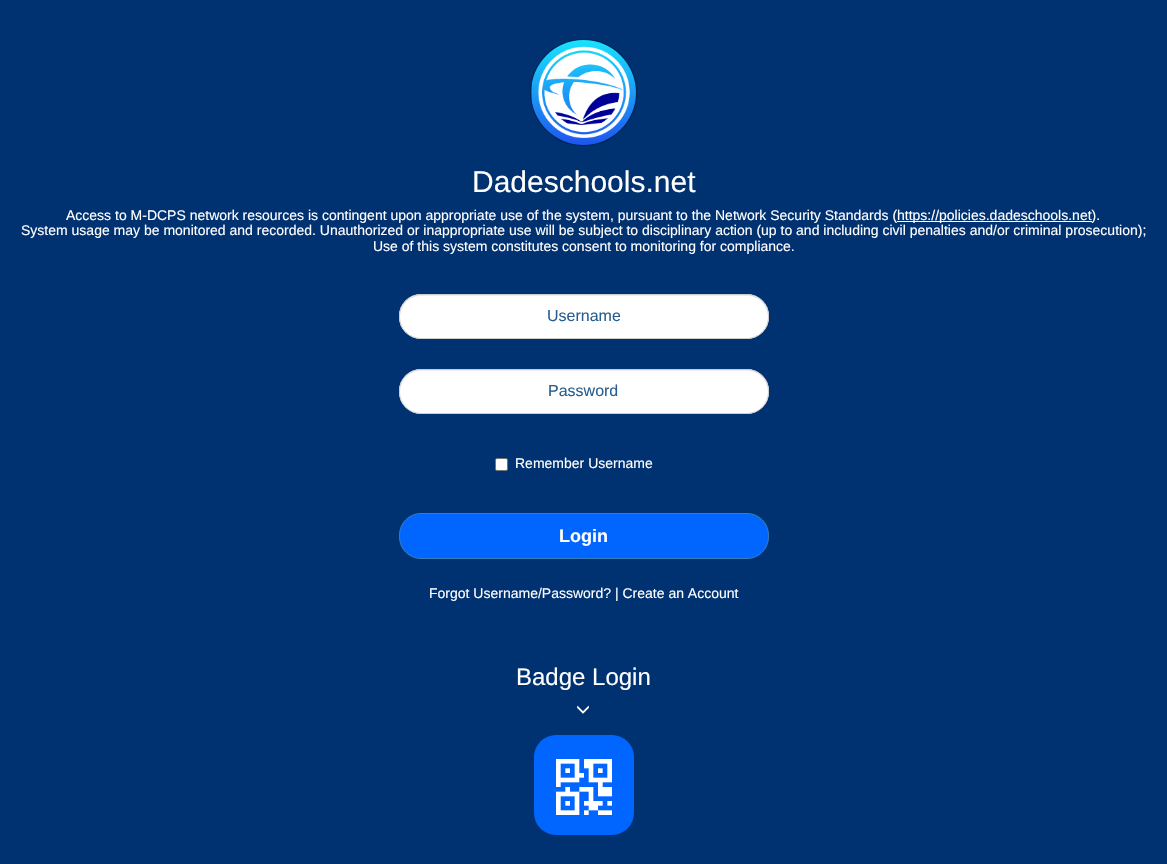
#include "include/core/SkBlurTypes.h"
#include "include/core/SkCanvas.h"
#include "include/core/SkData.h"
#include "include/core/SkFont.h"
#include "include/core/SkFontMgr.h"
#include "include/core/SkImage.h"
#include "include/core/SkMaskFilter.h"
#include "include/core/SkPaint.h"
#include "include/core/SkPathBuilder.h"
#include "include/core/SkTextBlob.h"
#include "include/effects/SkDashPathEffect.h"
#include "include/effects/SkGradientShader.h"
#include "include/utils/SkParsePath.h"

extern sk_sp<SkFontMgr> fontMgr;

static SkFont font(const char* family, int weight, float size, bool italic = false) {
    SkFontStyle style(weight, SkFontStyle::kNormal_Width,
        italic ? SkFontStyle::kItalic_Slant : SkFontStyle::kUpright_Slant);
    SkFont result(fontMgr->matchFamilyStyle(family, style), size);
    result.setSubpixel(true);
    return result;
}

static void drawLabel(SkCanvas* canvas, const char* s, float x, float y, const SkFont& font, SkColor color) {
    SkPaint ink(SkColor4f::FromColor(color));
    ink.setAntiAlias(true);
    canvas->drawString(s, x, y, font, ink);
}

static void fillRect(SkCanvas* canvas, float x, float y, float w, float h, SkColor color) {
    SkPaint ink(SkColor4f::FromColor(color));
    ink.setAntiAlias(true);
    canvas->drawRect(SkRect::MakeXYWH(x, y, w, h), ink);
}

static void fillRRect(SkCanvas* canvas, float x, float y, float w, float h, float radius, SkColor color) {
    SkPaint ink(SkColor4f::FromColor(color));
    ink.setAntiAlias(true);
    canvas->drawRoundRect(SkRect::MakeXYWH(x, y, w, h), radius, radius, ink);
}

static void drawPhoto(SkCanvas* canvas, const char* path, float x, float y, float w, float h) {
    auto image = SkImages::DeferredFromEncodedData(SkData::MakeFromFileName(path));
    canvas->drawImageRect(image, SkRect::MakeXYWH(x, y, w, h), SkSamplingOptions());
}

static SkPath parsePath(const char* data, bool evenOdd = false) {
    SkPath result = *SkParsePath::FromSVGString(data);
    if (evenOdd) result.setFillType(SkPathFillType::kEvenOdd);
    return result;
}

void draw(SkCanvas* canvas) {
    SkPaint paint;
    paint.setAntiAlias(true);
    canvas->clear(0xFF003171);
    paint.setColor(0x4D000000);
    paint.setMaskFilter(SkMaskFilter::MakeBlur(kNormal_SkBlurStyle, 0.5f));
    canvas->drawRoundRect(SkRect::MakeXYWH(530, 39, 107, 107), 53.5f, 53.5f, paint);
    paint.setMaskFilter(nullptr);
    drawPhoto(canvas, "assets/img1.png", 531, 40, 105, 105);
    SkFont font1 = font("Liberation Sans", 400, 30);
    drawLabel(canvas, "Dadeschools.net", 472, 192, font1, 0xFFFFFFFF);
    SkFont font2 = font("Liberation Sans", 400, 14);
    drawLabel(canvas, "Access to M-DCPS network resources is contingent upon appropriate use of the system, pursuant to the Network Security Standards (", 66, 220, font2, 0xFFFFFFFF);
    fillRect(canvas, 897, 221, 195, 1, 0xFFFFFFFF);
    drawLabel(canvas, "https://policies.dadeschools.net).", 897, 220, font2, 0xFFFFFFFF);
    drawLabel(canvas, "System usage may be monitored and recorded. Unauthorized or inappropriate use will be subject to disciplinary action (up to and including civil penalties and/or criminal prosecution);", 21, 235, font2, 0xFFFFFFFF);
    drawLabel(canvas, "Use of this system constitutes consent to monitoring for compliance.", 373, 251, font2, 0xFFFFFFFF);
    fillRRect(canvas, 399, 294, 370, 45, 22, 0xFFFFFFFF);
    paint.setColor(0xFFECECEC);
    canvas->drawPath(parsePath("M421 296H747C759 296 768 305 768 317V316C768 304 759 295 747 295H421C409 295 400 304 400 316V317C400 305 409 296 421 296Z"), paint);
    paint.setStroke(true);
    paint.setStrokeWidth(1);
    paint.setColor(0xFFCCCCCC);
    canvas->drawRoundRect(SkRect::MakeXYWH(399.5f, 294.5f, 369, 44), 21.5f, 21.5f, paint);
    SkFont font3 = font("Liberation Sans", 400, 16);
    drawLabel(canvas, "Username", 547, 321, font3, 0xFF285E8E);
    fillRRect(canvas, 399, 369, 370, 45, 22, 0xFFFFFFFF);
    paint.setStroke(false);
    paint.setColor(0xFFECECEC);
    canvas->drawPath(parsePath("M421 371H747C759 371 768 380 768 392V391C768 379 759 370 747 370H421C409 370 400 379 400 391V392C400 380 409 371 421 371Z"), paint);
    paint.setStroke(true);
    paint.setColor(0xFFCCCCCC);
    canvas->drawRoundRect(SkRect::MakeXYWH(399.5f, 369.5f, 369, 44), 21.5f, 21.5f, paint);
    drawLabel(canvas, "Password", 548, 396, font3, 0xFF285E8E);
    paint.setStroke(false);
    paint.setColor(0xFFFFFFFF);
    canvas->drawRoundRect(SkRect::MakeXYWH(495.5f, 458.5f, 12, 12), 1.5f, 1.5f, paint);
    paint.setStroke(true);
    paint.setColor(0xFF767676);
    canvas->drawRoundRect(SkRect::MakeXYWH(495.5f, 458.5f, 12, 12), 1.5f, 1.5f, paint);
    drawLabel(canvas, "Remember Username", 515, 468, font2, 0xFFFFFFFF);
    paint.setStroke(false);
    paint.setColor(0xFF0066FF);
    canvas->drawRoundRect(SkRect::MakeXYWH(399.5f, 513.5f, 369, 45), 21.5f, 21.5f, paint);
    paint.setStroke(true);
    paint.setColor(0xFF357EBD);
    canvas->drawRoundRect(SkRect::MakeXYWH(399.5f, 513.5f, 369, 45), 21.5f, 21.5f, paint);
    SkFont font4 = font("Liberation Sans", 700, 18);
    drawLabel(canvas, "Login", 559, 542, font4, 0xFFFFFFFF);
    drawLabel(canvas, "Forgot Username/Password? | Create an Account", 429, 598, font2, 0xFFFFFFFF);
    SkFont font5 = font("Liberation Sans", 400, 24);
    drawLabel(canvas, "Badge Login", 516, 685, font5, 0xFFFFFFFF);
    drawPhoto(canvas, "assets/img2.png", 577, 705, 12, 9);
    fillRRect(canvas, 534, 735, 100, 100, 22, 0xFF0066FF);
    drawPhoto(canvas, "assets/img3.png", 556, 759, 56, 56);
}
